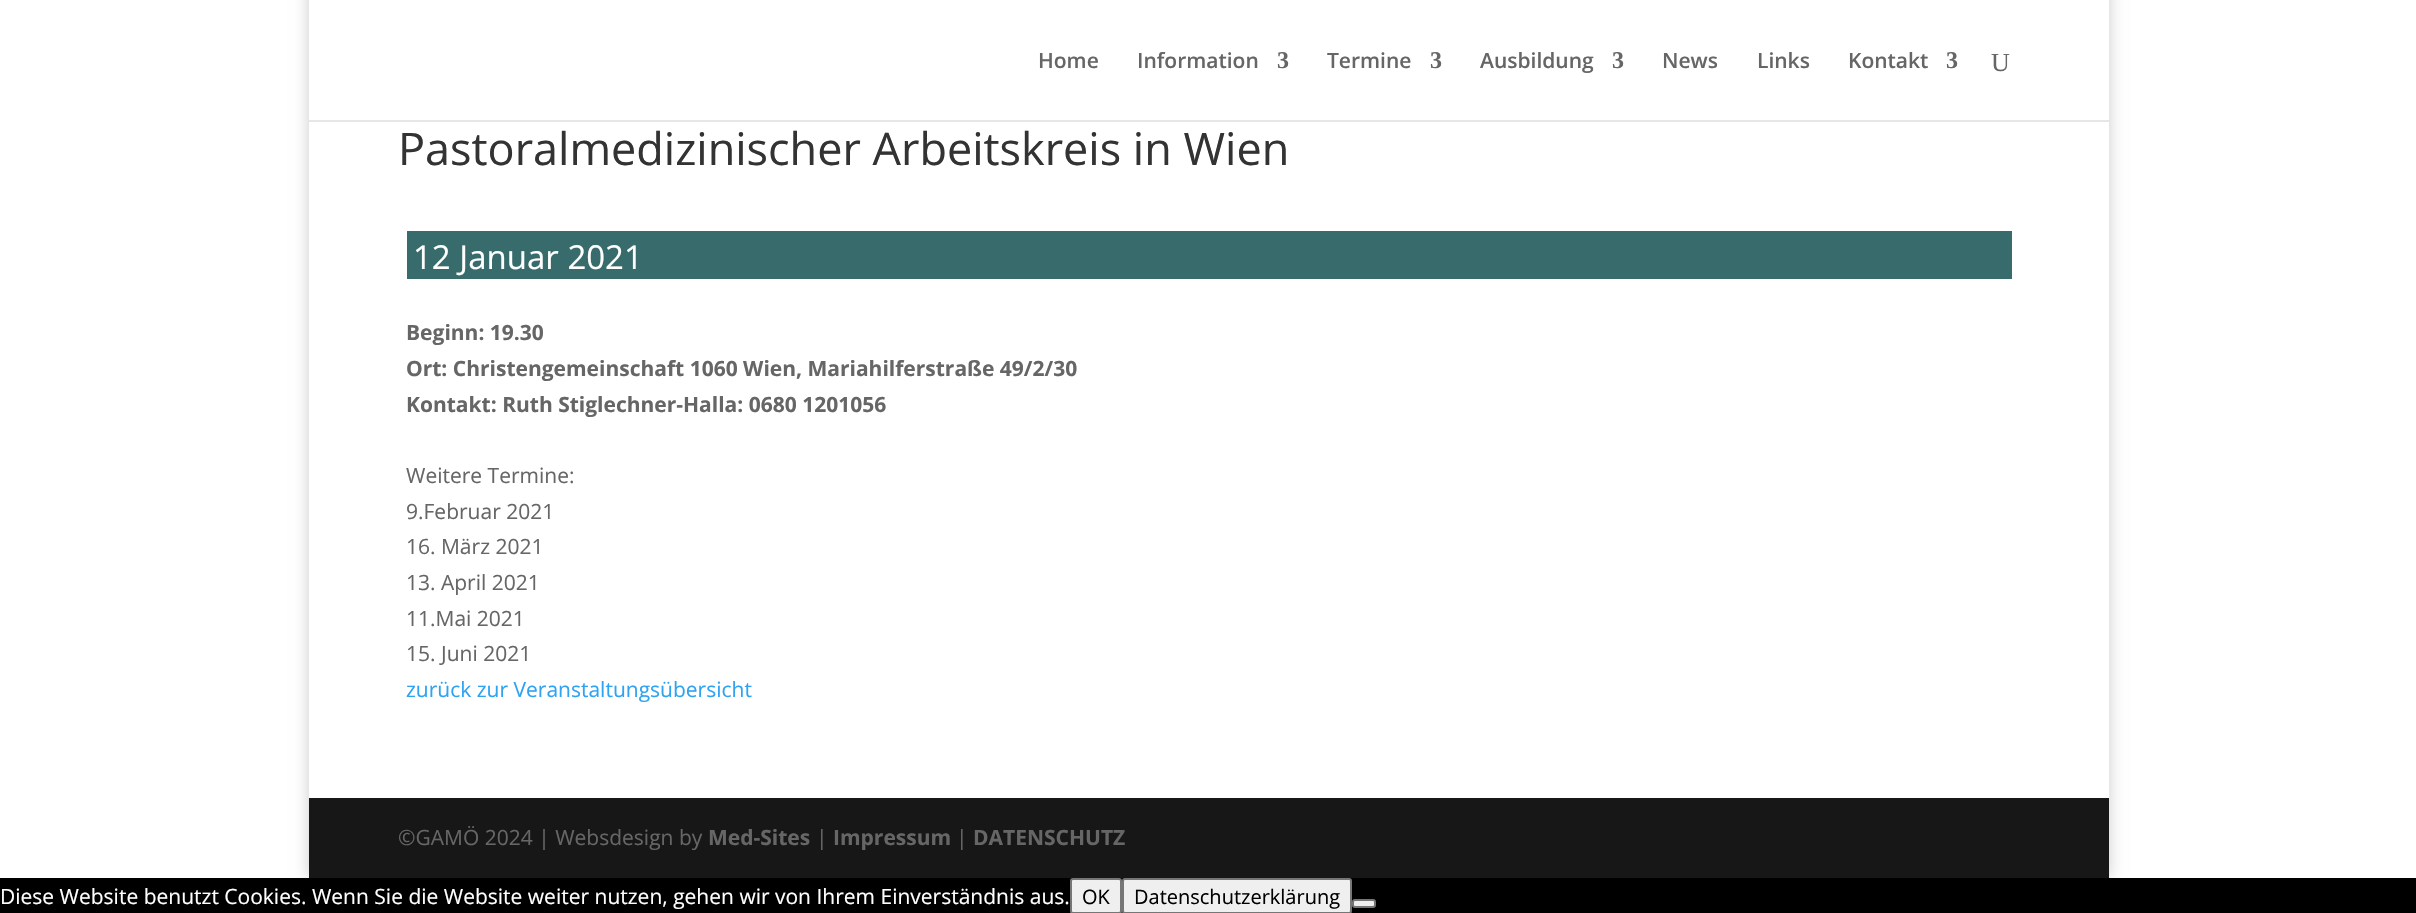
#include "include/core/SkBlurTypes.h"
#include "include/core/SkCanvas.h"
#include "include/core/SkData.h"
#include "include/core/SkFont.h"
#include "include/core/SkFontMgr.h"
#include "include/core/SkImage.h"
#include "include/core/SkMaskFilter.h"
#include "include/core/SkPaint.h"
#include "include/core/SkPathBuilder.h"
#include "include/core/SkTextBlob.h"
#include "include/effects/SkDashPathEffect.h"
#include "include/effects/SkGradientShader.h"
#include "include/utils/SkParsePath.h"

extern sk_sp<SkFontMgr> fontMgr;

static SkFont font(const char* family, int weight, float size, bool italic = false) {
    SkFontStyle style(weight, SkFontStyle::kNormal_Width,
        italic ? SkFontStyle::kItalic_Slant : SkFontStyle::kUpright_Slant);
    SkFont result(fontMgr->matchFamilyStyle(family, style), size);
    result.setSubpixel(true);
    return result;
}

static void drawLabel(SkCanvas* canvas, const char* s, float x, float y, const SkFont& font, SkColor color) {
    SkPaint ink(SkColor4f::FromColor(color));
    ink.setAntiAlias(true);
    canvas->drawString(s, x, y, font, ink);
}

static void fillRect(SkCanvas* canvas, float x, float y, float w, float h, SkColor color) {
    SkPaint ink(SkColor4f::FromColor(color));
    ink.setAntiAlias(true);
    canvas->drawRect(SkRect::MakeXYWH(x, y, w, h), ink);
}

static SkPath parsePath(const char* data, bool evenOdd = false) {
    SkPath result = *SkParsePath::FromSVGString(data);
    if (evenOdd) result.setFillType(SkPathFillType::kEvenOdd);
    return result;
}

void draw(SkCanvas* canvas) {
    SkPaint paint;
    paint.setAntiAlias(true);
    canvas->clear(0xFFFFFFFF);
    canvas->save();
    canvas->clipPath(parsePath("M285 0H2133V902H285ZM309-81H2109V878H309Z", true), true);
    paint.setColor(0x33000000);
    paint.setMaskFilter(SkMaskFilter::MakeBlur(kNormal_SkBlurStyle, 7.5f));
    canvas->drawRect(SkRect::MakeXYWH(309, -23, 1800, 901), paint);
    paint.setMaskFilter(nullptr);
    canvas->restore();
    fillRect(canvas, 309, 120, 1800, 2, 0xFFE6E6E6);
    SkFont font1 = font("Open Sans", 600, 21);
    drawLabel(canvas, "Home", 1038, 68, font1, 0xFF666666);
    drawLabel(canvas, "Information", 1137, 68, font1, 0xFF666666);
    SkFont font2 = font("Liberation Serif", 700, 24);
    drawLabel(canvas, "3", 1277, 68, font2, 0xFF666666);
    drawLabel(canvas, "Termine", 1327, 68, font1, 0xFF666666);
    drawLabel(canvas, "3", 1430, 68, font2, 0xFF666666);
    drawLabel(canvas, "Ausbildung", 1480, 68, font1, 0xFF666666);
    drawLabel(canvas, "3", 1612, 68, font2, 0xFF666666);
    drawLabel(canvas, "News", 1662, 68, font1, 0xFF666666);
    drawLabel(canvas, "Links", 1757, 68, font1, 0xFF666666);
    drawLabel(canvas, "Kontakt", 1848, 68, font1, 0xFF666666);
    drawLabel(canvas, "3", 1946, 68, font2, 0xFF666666);
    SkFont font3 = font("Liberation Serif", 400, 26);
    drawLabel(canvas, "U", 1991, 71, font3, 0xFF666666);
    SkFont font4 = font("Open Sans", 400, 45);
    drawLabel(canvas, "Pastoralmedizinischer Arbeitskreis in Wien", 398, 165, font4, 0xFF333333);
    fillRect(canvas, 407, 231, 1605, 48, 0xFF386B6B);
    SkFont font5 = font("Open Sans", 400, 33);
    drawLabel(canvas, "12 Januar 2021", 413, 269, font5, 0xFFFFFFFF);
    SkFont font6 = font("Open Sans", 700, 21);
    drawLabel(canvas, "Beginn: 19.30", 406, 340, font6, 0xFF666666);
    drawLabel(canvas, "Ort: Christengemeinschaft 1060 Wien, Mariahilferstraße 49/2/30", 406, 376, font6, 0xFF666666);
    drawLabel(canvas, "Kontakt: Ruth Stiglechner-Halla: 0680 1201056", 406, 412, font6, 0xFF666666);
    SkFont font7 = font("Open Sans", 400, 21);
    drawLabel(canvas, "Weitere Termine:", 406, 483, font7, 0xFF666666);
    drawLabel(canvas, "9.Februar 2021", 406, 519, font7, 0xFF666666);
    drawLabel(canvas, "16. März 2021", 406, 554, font7, 0xFF666666);
    drawLabel(canvas, "13. April 2021", 406, 590, font7, 0xFF666666);
    drawLabel(canvas, "11.Mai 2021", 406, 626, font7, 0xFF666666);
    drawLabel(canvas, "15. Juni 2021", 406, 661, font7, 0xFF666666);
    drawLabel(canvas, "zurück zur Veranstaltungsübersicht", 406, 697, font7, 0xFF2EA3F2);
    fillRect(canvas, 309, 798, 1800, 80, 0xFF171717);
    drawLabel(canvas, "©GAMÖ 2024 | Websdesign by", 398, 845, font7, 0xFF666666);
    drawLabel(canvas, "Med-Sites", 708, 845, font6, 0xFF666666);
    drawLabel(canvas, "|", 816, 845, font7, 0xFF666666);
    drawLabel(canvas, "Impressum", 833, 845, font6, 0xFF666666);
    drawLabel(canvas, "|", 956, 845, font7, 0xFF666666);
    drawLabel(canvas, "DATENSCHUTZ", 973, 845, font6, 0xFF666666);
    fillRect(canvas, 0, 878, 2416, 35, 0xFF000000);
    drawLabel(canvas, "Diese Website benutzt Cookies. Wenn Sie die Website weiter nutzen, gehen wir von Ihrem Einverständnis aus.", 0, 904, font7, 0xFFFFFFFF);
    paint.setColor(0xFFEFEFEF);
    canvas->drawRoundRect(SkRect::MakeXYWH(1071, 879, 50, 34), 2, 2, paint);
    paint.setStroke(true);
    paint.setStrokeWidth(2);
    paint.setColor(0xFF767676);
    canvas->drawRoundRect(SkRect::MakeXYWH(1071, 879, 50, 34), 2, 2, paint);
    SkFont font8 = font("Open Sans", 400, 20);
    drawLabel(canvas, "OK", 1082, 904, font8, 0xFF000000);
    paint.setStroke(false);
    paint.setColor(0xFFEFEFEF);
    canvas->drawRoundRect(SkRect::MakeXYWH(1123, 879, 228, 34), 2, 2, paint);
    paint.setStroke(true);
    paint.setColor(0xFF767676);
    canvas->drawRoundRect(SkRect::MakeXYWH(1123, 879, 228, 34), 2, 2, paint);
    drawLabel(canvas, "Datenschutzerklärung", 1134, 904, font8, 0xFF000000);
    paint.setStroke(false);
    paint.setColor(0xFFEFEFEF);
    canvas->drawRoundRect(SkRect::MakeXYWH(1353, 900, 22, 7), 2, 2, paint);
    paint.setStroke(true);
    paint.setColor(0xFF767676);
    canvas->drawRoundRect(SkRect::MakeXYWH(1353, 900, 22, 7), 2, 2, paint);
}
